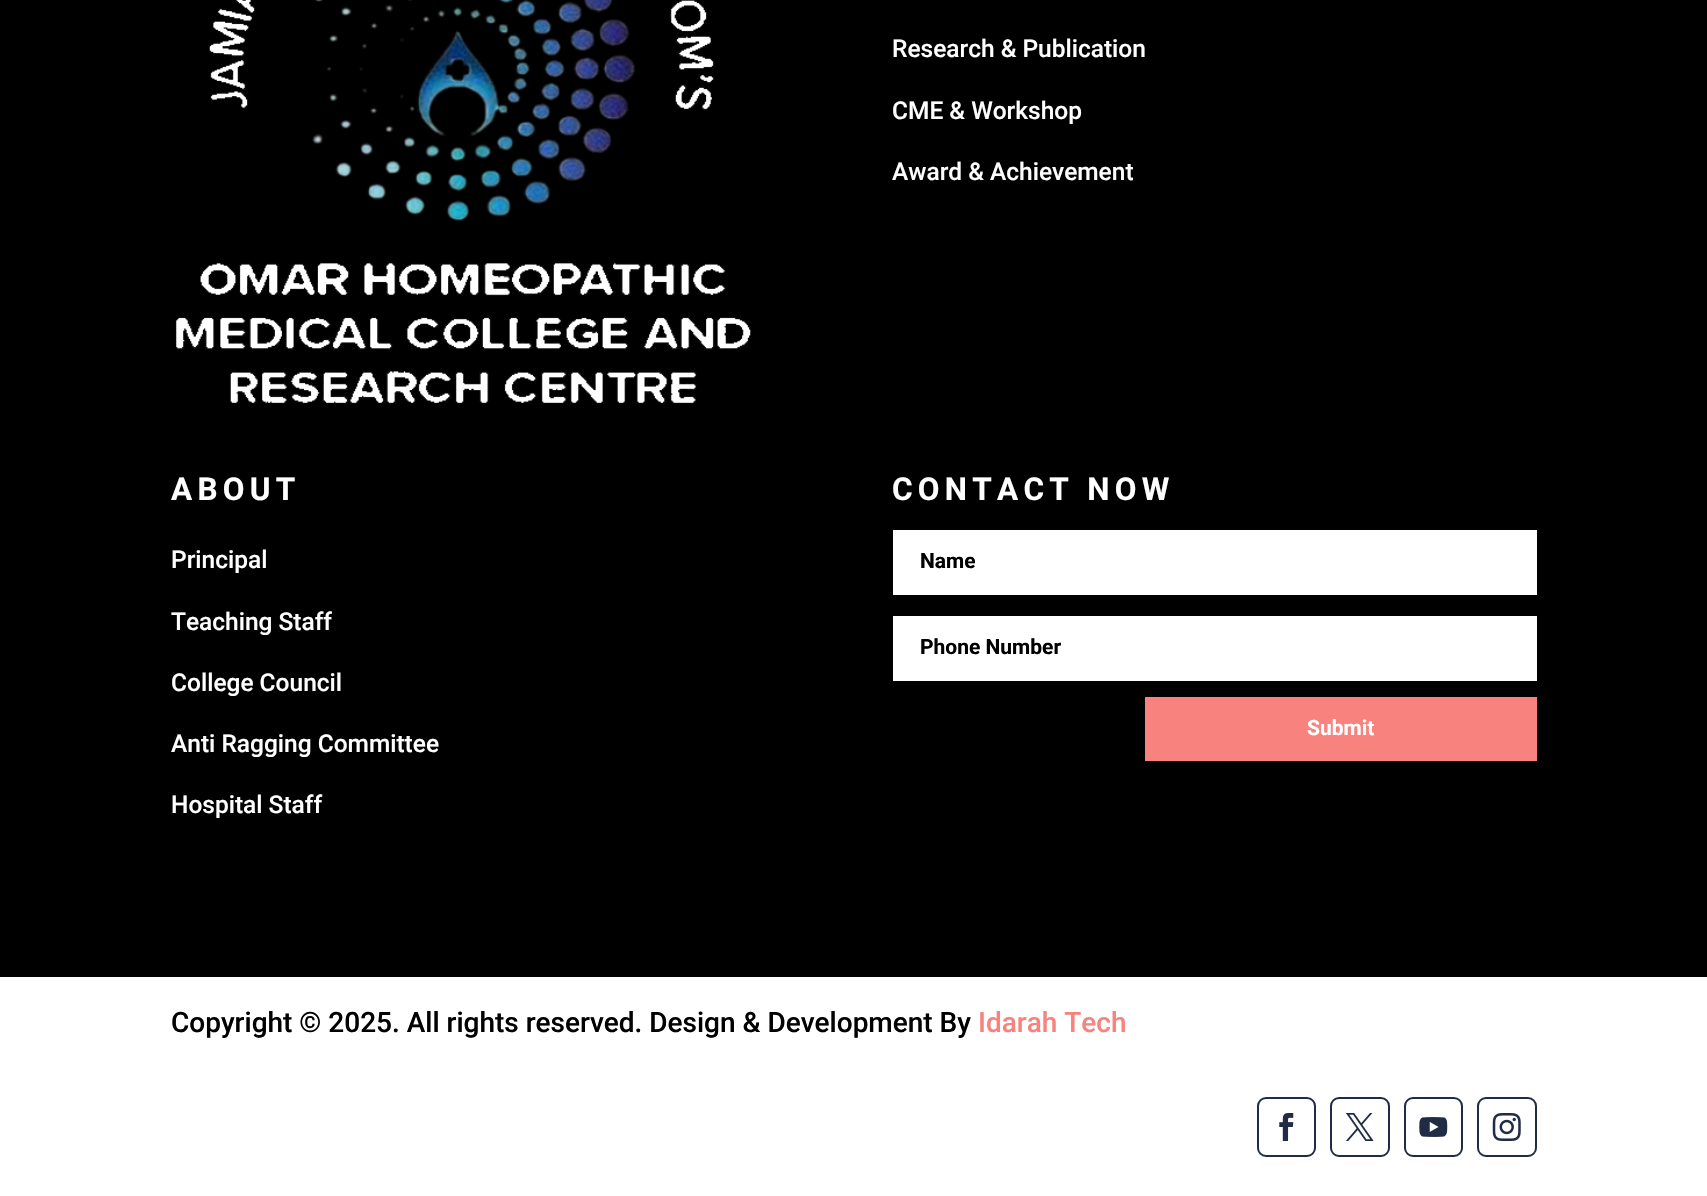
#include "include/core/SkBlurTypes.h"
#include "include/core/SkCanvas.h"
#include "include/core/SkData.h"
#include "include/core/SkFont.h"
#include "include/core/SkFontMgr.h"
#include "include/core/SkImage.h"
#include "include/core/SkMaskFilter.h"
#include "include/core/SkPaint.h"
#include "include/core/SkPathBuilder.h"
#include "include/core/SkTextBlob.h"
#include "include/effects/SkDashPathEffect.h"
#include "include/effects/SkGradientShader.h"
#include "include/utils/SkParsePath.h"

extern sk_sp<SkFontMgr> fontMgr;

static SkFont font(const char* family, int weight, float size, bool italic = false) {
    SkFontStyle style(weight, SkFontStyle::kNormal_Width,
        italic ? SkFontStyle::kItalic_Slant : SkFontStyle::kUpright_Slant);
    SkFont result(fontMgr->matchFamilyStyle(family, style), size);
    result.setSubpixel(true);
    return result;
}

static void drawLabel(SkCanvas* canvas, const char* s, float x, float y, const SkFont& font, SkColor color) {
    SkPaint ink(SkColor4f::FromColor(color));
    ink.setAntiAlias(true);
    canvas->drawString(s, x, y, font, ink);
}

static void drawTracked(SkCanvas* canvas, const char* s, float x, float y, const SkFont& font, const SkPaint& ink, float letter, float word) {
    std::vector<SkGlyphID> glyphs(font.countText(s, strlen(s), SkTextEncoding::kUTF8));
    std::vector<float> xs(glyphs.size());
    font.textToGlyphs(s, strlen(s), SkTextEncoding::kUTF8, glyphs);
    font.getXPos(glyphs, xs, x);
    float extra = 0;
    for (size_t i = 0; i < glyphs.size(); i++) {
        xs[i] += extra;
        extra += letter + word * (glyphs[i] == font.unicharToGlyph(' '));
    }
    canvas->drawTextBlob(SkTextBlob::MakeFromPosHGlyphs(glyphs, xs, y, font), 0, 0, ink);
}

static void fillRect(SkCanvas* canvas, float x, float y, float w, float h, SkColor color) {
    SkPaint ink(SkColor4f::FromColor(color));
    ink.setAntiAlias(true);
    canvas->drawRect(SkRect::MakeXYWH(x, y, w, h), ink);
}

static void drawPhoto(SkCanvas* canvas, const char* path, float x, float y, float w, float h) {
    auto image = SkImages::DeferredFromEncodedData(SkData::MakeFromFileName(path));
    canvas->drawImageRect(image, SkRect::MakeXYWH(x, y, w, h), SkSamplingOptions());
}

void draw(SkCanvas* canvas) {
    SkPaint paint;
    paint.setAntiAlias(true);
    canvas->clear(0xFFFFFFFF);
    fillRect(canvas, 0, 0, 1707, 977, 0xFF000000);
    drawPhoto(canvas, "assets/img1.png", 175, 0, 576, 404);
    SkFont font1 = font("Roboto", 500, 24.5f);
    drawLabel(canvas, "Research & Publication", 892, 57, font1, 0xFFFFFFFF);
    drawLabel(canvas, "CME & Workshop", 892, 119, font1, 0xFFFFFFFF);
    drawLabel(canvas, "Award & Achievement", 892, 180, font1, 0xFFFFFFFF);
    SkFont font2 = font("Roboto", 700, 31.5f);
    paint.setColor(0xFFFFFFFF);
    drawTracked(canvas, "ABOUT", 171, 500, font2, paint, 5.25f, 0);
    drawLabel(canvas, "Principal", 171, 568, font1, 0xFFFFFFFF);
    drawLabel(canvas, "Teaching Staff", 171, 630, font1, 0xFFFFFFFF);
    drawLabel(canvas, "College Council", 171, 691, font1, 0xFFFFFFFF);
    drawLabel(canvas, "Anti Ragging Committee", 171, 752, font1, 0xFFFFFFFF);
    drawLabel(canvas, "Hospital Staff", 171, 813, font1, 0xFFFFFFFF);
    drawTracked(canvas, "CONTACT NOW", 892, 500, font2, paint, 5.25f, 0);
    fillRect(canvas, 893, 530, 644, 65, 0xFFFFFFFF);
    SkFont font3 = font("Roboto", 700, 21);
    drawLabel(canvas, "Name", 920, 568, font3, 0xFF000000);
    fillRect(canvas, 893, 616, 644, 65, 0xFFFFFFFF);
    drawLabel(canvas, "Phone Number", 920, 654, font3, 0xFF000000);
    fillRect(canvas, 1145, 697, 392, 64, 0xFFF7827E);
    drawLabel(canvas, "Submit", 1307, 735, font3, 0xFFFFFFFF);
    SkFont font4 = font("Roboto", 500, 28);
    drawLabel(canvas, "Copyright © 2025. All rights reserved. Design & Development By", 171, 1032, font4, 0xFF000000);
    drawLabel(canvas, "Idarah Tech", 978, 1032, font4, 0xFFF7827E);
    paint.setStroke(true);
    paint.setStrokeWidth(2);
    paint.setColor(0xFF202C45);
    canvas->drawRoundRect(SkRect::MakeXYWH(1258, 1098, 57, 58), 8, 8, paint);
    drawPhoto(canvas, "assets/img2.png", 1279, 1113, 15, 28);
    canvas->drawRoundRect(SkRect::MakeXYWH(1331, 1098, 58, 58), 8, 8, paint);
    drawPhoto(canvas, "assets/img3.png", 1346, 1113, 28, 28);
    canvas->drawRoundRect(SkRect::MakeXYWH(1405, 1098, 57, 58), 8, 8, paint);
    drawPhoto(canvas, "assets/img4.png", 1419, 1117, 29, 20);
    canvas->drawRoundRect(SkRect::MakeXYWH(1478, 1098, 58, 58), 8, 8, paint);
    drawPhoto(canvas, "assets/img5.png", 1492, 1113, 29, 28);
}
